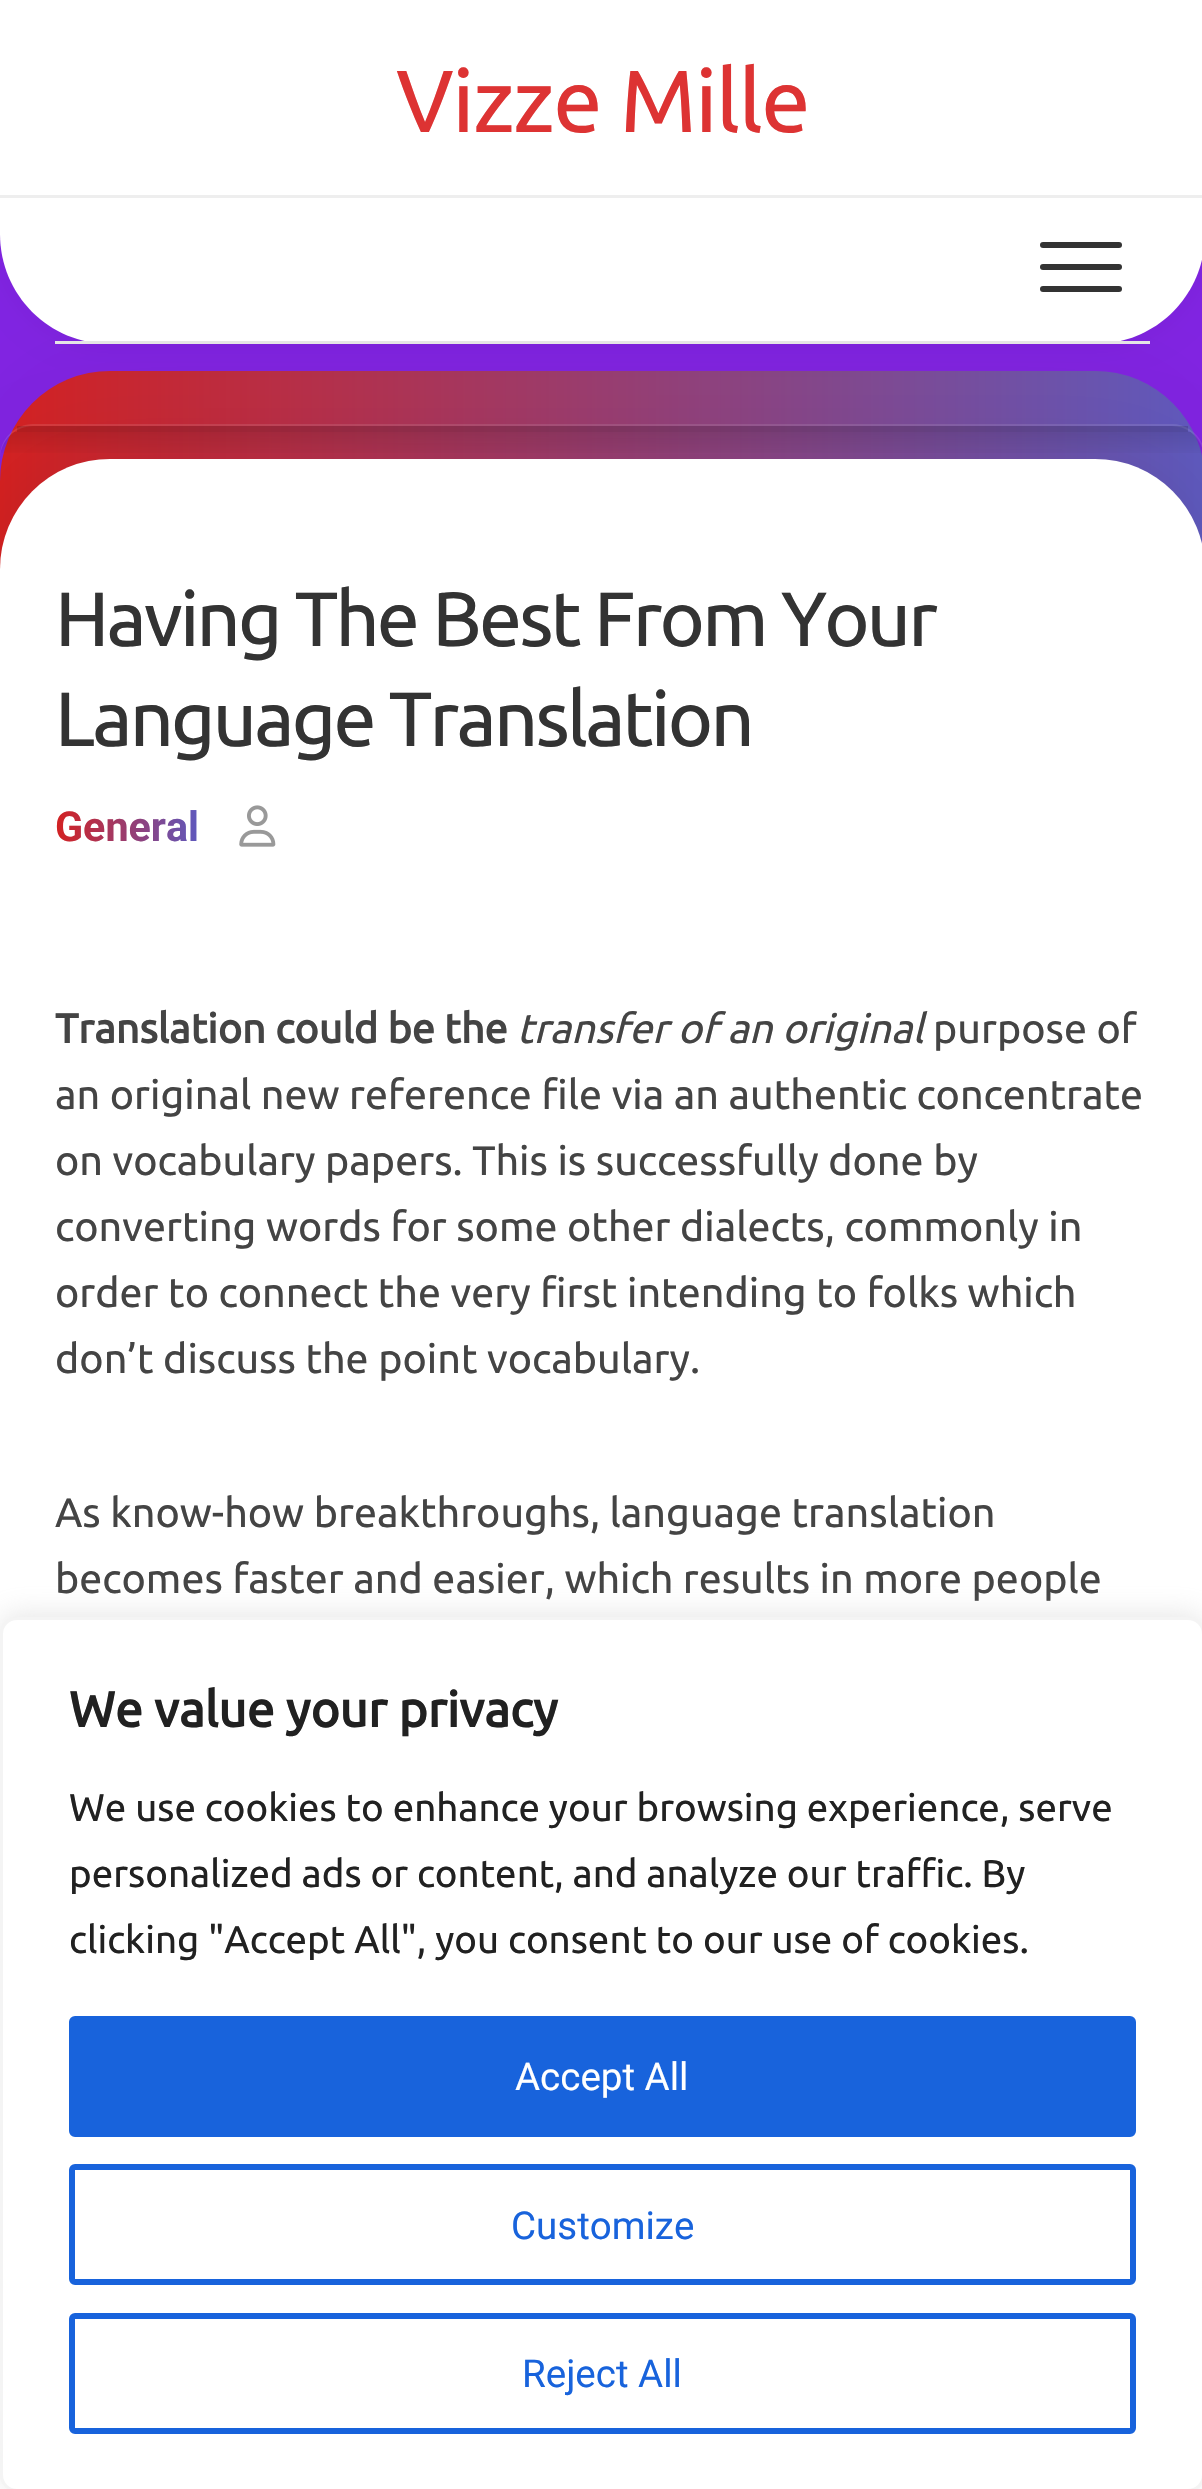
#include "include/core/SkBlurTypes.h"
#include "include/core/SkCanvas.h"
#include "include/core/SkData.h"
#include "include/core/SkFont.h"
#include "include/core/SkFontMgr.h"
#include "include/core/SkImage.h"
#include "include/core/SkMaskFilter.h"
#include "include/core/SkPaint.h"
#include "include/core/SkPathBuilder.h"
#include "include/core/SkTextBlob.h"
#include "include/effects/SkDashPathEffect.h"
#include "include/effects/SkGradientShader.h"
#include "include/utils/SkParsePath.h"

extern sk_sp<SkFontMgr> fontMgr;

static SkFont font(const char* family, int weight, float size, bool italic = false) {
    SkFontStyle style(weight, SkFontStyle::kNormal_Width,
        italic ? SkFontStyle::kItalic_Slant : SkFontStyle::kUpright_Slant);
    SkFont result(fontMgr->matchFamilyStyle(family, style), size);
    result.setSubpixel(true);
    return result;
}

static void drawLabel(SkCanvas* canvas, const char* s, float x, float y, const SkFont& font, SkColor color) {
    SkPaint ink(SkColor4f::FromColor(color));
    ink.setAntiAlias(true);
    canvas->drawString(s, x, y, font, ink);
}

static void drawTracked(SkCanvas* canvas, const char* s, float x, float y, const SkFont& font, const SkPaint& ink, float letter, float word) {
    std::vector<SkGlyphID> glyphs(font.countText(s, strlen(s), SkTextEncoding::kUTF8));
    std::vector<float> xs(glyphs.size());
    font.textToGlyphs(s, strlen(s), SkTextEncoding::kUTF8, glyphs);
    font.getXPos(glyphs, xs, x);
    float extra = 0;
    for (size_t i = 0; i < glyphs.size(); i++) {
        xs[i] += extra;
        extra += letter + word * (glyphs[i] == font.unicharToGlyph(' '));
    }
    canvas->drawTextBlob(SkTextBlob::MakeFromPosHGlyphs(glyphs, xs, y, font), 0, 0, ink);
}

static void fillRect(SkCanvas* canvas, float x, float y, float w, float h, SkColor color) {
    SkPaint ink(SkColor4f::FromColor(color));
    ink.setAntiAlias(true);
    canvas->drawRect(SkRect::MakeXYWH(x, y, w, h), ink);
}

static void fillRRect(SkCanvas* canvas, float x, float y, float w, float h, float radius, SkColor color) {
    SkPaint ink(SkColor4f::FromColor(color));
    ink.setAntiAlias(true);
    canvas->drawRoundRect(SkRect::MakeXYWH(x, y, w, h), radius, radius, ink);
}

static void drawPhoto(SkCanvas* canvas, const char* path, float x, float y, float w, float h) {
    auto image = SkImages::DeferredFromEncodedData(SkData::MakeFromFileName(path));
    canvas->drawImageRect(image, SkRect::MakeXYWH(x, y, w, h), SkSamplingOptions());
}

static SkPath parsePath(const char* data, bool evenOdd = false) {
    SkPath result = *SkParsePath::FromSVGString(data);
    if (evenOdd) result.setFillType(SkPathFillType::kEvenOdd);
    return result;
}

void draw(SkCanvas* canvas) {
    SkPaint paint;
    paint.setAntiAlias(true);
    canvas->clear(0xFF8224E3);
    fillRect(canvas, 0, 0, 1202, 3, 0xFFFFFFFF);
    paint.setColor(0x0D000000);
    paint.setMaskFilter(SkMaskFilter::MakeBlur(kNormal_SkBlurStyle, 55));
    canvas->drawRoundRect(SkRect::MakeXYWH(0, 371, 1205, 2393), 110, 110, paint);
    paint.setMaskFilter(nullptr);
    {
        const SkColor colors[] = {0xFFD42121, 0xFF5E59BE};
        const float stops[] = {0, 1};
        const SkPoint ends[] = {{0, 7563}, {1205, 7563}};
        paint.setShader(SkGradientShader::MakeLinear(ends, colors, stops, 2, SkTileMode::kClamp));
        paint.setAlpha(255);
    }
    canvas->drawRoundRect(SkRect::MakeXYWH(0, 371, 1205, 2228), 110, 110, paint);
    canvas->save();
    canvas->clipRect(SkRect::MakeXYWH(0, 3, 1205, 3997));
    paint.setShader(nullptr);
    paint.setColor(0x0D000000);
    paint.setMaskFilter(SkMaskFilter::MakeBlur(kNormal_SkBlurStyle, 14));
    canvas->drawRoundRect(SkRect::MakeXYWH(0, 3, 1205, 341), 110, 110, paint);
    paint.setMaskFilter(nullptr);
    canvas->restore();
    paint.setColor(0x1AFFFFFF);
    canvas->drawPath(parsePath("M33 424C15 424 0 439 0 457C1 440 16 426 33 426H1172C1189 426 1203 440 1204 457H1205C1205 439 1190 424 1172 424Z"), paint);
    canvas->save();
    canvas->clipPath(parsePath("M33 426H1172C1190 426 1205 441 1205 459H0C0 441 15 426 33 426Z"), true);
    {
        const SkColor colors[] = {0x1A000000, 0x00000000};
        const float stops[] = {0, 1};
        const SkPoint ends[] = {{602, 432}, {602, 459}};
        paint.setShader(SkGradientShader::MakeLinear(ends, colors, stops, 2, SkTileMode::kClamp));
        paint.setAlpha(255);
    }
    canvas->drawRect(SkRect::MakeXYWH(1, 432, 1201, 21), paint);
    canvas->restore();
    fillRect(canvas, 17, 426, 1171, 6, 0x26000000);
    paint.setShader(nullptr);
    paint.setColor(0x14000000);
    paint.setMaskFilter(SkMaskFilter::MakeBlur(kNormal_SkBlurStyle, 41));
    canvas->drawRoundRect(SkRect::MakeXYWH(0, 459, 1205, 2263), 110, 110, paint);
    paint.setMaskFilter(nullptr);
    paint.setColor(0xFFFFFFFF);
    canvas->drawPath(parsePath("M0 3H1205V234C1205 295 1156 344 1095 344H110C49 344 0 295 0 234Z"), paint);
    fillRect(canvas, 55, 341, 1095, 3, 0xFFE5E5E5);
    fillRect(canvas, 0, 195, 1202, 3, 0xFFEEEEEE);
    SkFont font1 = font("Ubuntu", 400, 88);
    paint.setColor(0xFFDD3333);
    drawTracked(canvas, "Vizze Mille", 396, 132, font1, paint, -1.4f, 0);
    fillRRect(canvas, 1040, 242, 82, 6, 3, 0xFF333333);
    fillRRect(canvas, 1040, 264, 82, 6, 3, 0xFF333333);
    fillRRect(canvas, 1040, 286, 82, 6, 3, 0xFF333333);
    fillRRect(canvas, 0, 459, 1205, 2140, 110, 0xFFFFFFFF);
    SkFont font2 = font("Ubuntu", 400, 77);
    paint.setColor(0xFF333333);
    drawTracked(canvas, "Having The Best From Your", 55, 646, font2, paint, -2.75f, 0);
    drawTracked(canvas, "Language Translation", 55, 746, font2, paint, -2.75f, 0);
    SkFont font3 = font("Roboto", 700, 41.25f);
    {
        const SkColor colors[] = {0xFF5E59BE, 0xFFD42121};
        const float stops[] = {0, 1};
        const SkPoint ends[] = {{199, 827}, {55, 827}};
        paint.setShader(SkGradientShader::MakeLinear(ends, colors, stops, 2, SkTileMode::kClamp));
        paint.setAlpha(255);
    }
    canvas->drawString("General", 55, 841, font3, paint);
    drawPhoto(canvas, "assets/img1.png", 239, 805, 37, 42);
    SkFont font4 = font("Ubuntu", 700, 41.25f);
    drawLabel(canvas, "Translation could be the", 55, 1043, font4, 0xFF444444);
    SkFont font5 = font("Ubuntu", 400, 41.25f, true);
    drawLabel(canvas, "transfer of an original", 517, 1043, font5, 0xFF444444);
    SkFont font6 = font("Ubuntu", 400, 41.25f);
    drawLabel(canvas, "purpose of", 933, 1043, font6, 0xFF444444);
    drawLabel(canvas, "an original new reference file via an authentic concentrate", 55, 1109, font6, 0xFF444444);
    drawLabel(canvas, "on vocabulary papers. This is successfully done by", 55, 1175, font6, 0xFF444444);
    drawLabel(canvas, "converting words for some other dialects, commonly in", 55, 1241, font6, 0xFF444444);
    drawLabel(canvas, "order to connect the very first intending to folks which", 55, 1307, font6, 0xFF444444);
    drawLabel(canvas, "don’t discuss the point vocabulary.", 55, 1373, font6, 0xFF444444);
    drawLabel(canvas, "As know-how breakthroughs, language translation", 55, 1527, font6, 0xFF444444);
    drawLabel(canvas, "becomes faster and easier, which results in more people", 55, 1593, font6, 0xFF444444);
    paint.setShader(nullptr);
    paint.setColor(0x4DACABAB);
    paint.setMaskFilter(SkMaskFilter::MakeBlur(kNormal_SkBlurStyle, 14));
    canvas->drawRoundRect(SkRect::MakeXYWH(0, 1614, 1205, 875), 17, 17, paint);
    paint.setMaskFilter(nullptr);
    paint.setColor(0xFFFFFFFF);
    canvas->drawRoundRect(SkRect::MakeXYWH(1.5f, 1618.5f, 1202, 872), 15.5f, 15.5f, paint);
    paint.setStroke(true);
    paint.setStrokeWidth(3);
    paint.setColor(0xFFF4F4F4);
    canvas->drawRoundRect(SkRect::MakeXYWH(1.5f, 1618.5f, 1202, 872), 15.5f, 15.5f, paint);
    SkFont font7 = font("Ubuntu", 700, 49.5f);
    drawLabel(canvas, "We value your privacy", 69, 1727, font7, 0xFF212121);
    SkFont font8 = font("Ubuntu", 400, 38.5f);
    drawLabel(canvas, "We use cookies to enhance your browsing experience, serve", 69, 1821, font8, 0xFF212121);
    drawLabel(canvas, "personalized ads or content, and analyze our traffic. By", 69, 1887, font8, 0xFF212121);
    drawLabel(canvas, "clicking \"Accept All\", you consent to our use of cookies.", 69, 1953, font8, 0xFF212121);
    paint.setStroke(false);
    paint.setColor(0xFF1863DC);
    canvas->drawRoundRect(SkRect::MakeXYWH(72, 2019, 1061, 115), 3, 3, paint);
    paint.setStroke(true);
    paint.setStrokeWidth(6);
    canvas->drawRoundRect(SkRect::MakeXYWH(72, 2019, 1061, 115), 3, 3, paint);
    SkFont font9 = font("Roboto", 400, 38.5f);
    drawLabel(canvas, "Accept All", 515, 2090, font9, 0xFFFFFFFF);
    canvas->drawRoundRect(SkRect::MakeXYWH(72, 2167, 1061, 115), 3, 3, paint);
    drawLabel(canvas, "Customize", 511, 2239, font9, 0xFF1863DC);
    canvas->drawRoundRect(SkRect::MakeXYWH(72, 2316, 1061, 115), 3, 3, paint);
    drawLabel(canvas, "Reject All", 522, 2387, font9, 0xFF1863DC);
}
